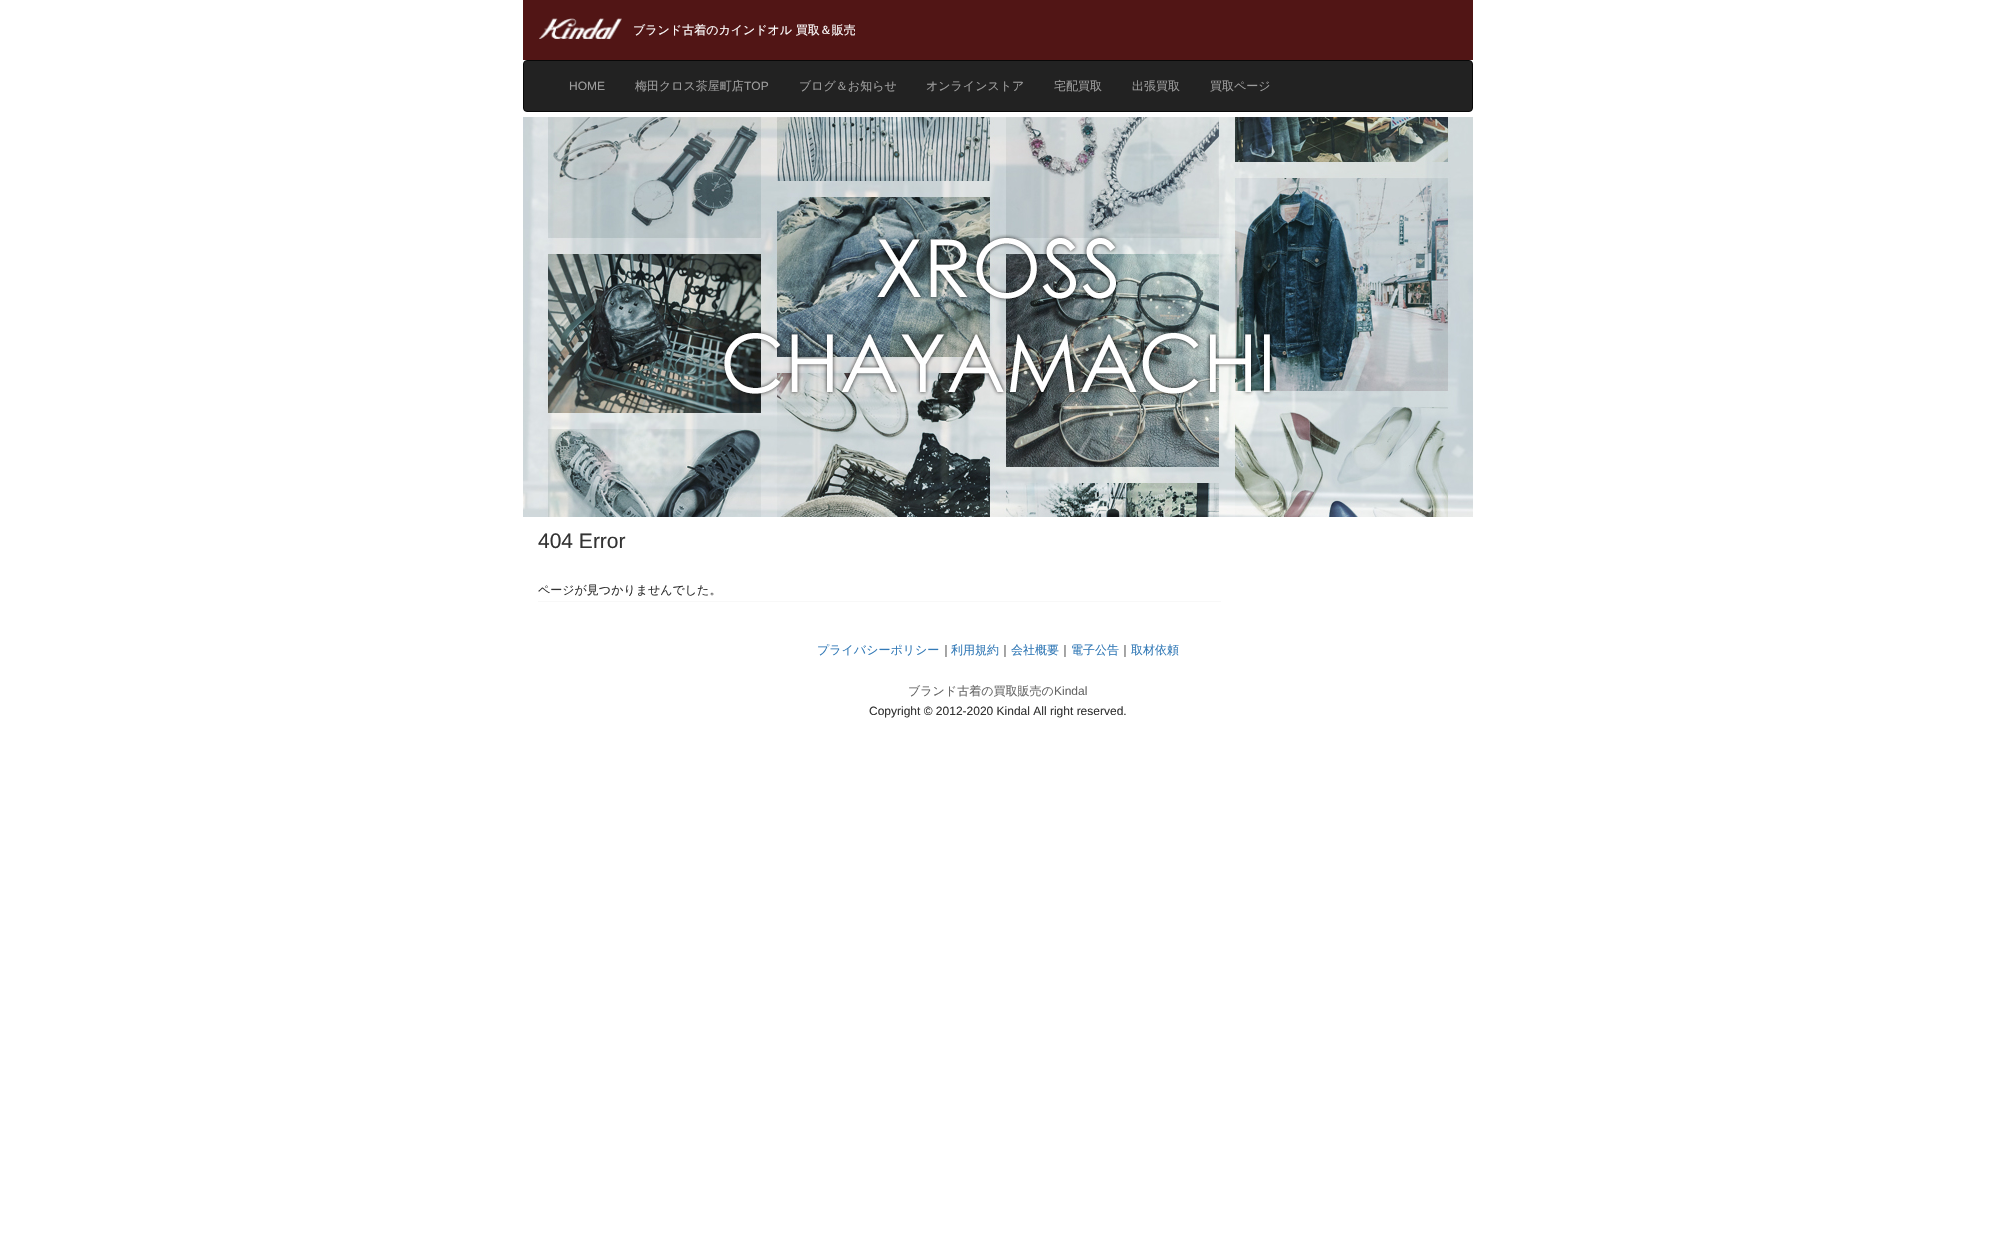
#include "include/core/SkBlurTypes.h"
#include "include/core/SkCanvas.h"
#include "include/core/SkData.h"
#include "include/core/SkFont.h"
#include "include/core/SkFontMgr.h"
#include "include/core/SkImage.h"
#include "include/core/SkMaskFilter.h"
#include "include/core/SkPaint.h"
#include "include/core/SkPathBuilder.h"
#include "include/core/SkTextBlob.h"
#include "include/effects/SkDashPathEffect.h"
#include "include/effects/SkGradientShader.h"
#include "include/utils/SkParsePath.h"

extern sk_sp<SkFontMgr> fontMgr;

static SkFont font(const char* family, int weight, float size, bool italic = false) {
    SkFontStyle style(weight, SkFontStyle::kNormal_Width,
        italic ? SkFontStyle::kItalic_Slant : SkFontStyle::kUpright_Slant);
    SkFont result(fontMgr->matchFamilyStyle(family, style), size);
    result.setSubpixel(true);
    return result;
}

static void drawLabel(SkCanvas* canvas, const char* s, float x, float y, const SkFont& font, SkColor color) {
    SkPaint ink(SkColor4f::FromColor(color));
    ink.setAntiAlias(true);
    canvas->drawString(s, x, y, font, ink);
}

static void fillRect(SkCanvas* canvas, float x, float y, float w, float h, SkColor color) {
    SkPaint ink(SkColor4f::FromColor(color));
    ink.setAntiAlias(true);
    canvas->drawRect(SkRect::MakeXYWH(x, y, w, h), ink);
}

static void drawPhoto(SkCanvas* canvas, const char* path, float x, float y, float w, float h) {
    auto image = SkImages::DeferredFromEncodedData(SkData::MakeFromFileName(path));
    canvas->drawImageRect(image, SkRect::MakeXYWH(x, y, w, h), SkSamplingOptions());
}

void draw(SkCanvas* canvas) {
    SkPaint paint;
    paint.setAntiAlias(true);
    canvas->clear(0xFFFFFFFF);
    fillRect(canvas, 523, 0, 950, 60, 0xFF511515);
    drawPhoto(canvas, "assets/img1.png", 539, 18, 83, 21);
    SkFont font1 = font("WenQuanYi Zen Hei", 500, 12);
    drawLabel(canvas, "ブランド古着のカインドオル 買取＆販売", 633, 34, font1, 0xFFFFFFFF);
    paint.setColor(0xFF222222);
    canvas->drawRoundRect(SkRect::MakeXYWH(523.5f, 60.5f, 949, 51), 3.5f, 3.5f, paint);
    paint.setStroke(true);
    paint.setStrokeWidth(1);
    paint.setColor(0xFF080808);
    canvas->drawRoundRect(SkRect::MakeXYWH(523.5f, 60.5f, 949, 51), 3.5f, 3.5f, paint);
    SkFont font2 = font("Liberation Sans", 400, 12);
    drawLabel(canvas, "HOME", 569, 90, font2, 0xFF9D9D9D);
    drawLabel(canvas, "梅田クロス茶屋町店", 635, 90, font1, 0xFF9D9D9D);
    drawLabel(canvas, "TOP", 744, 90, font2, 0xFF9D9D9D);
    drawLabel(canvas, "ブログ＆お知らせ", 799, 90, font1, 0xFF9D9D9D);
    drawLabel(canvas, "オンラインストア", 926, 90, font1, 0xFF9D9D9D);
    drawLabel(canvas, "宅配買取", 1054, 90, font1, 0xFF9D9D9D);
    drawLabel(canvas, "出張買取", 1132, 90, font1, 0xFF9D9D9D);
    drawLabel(canvas, "買取ページ", 1210, 90, font1, 0xFF9D9D9D);
    drawPhoto(canvas, "assets/img2.png", 523, 117, 950, 400);
    SkFont font3 = font("Liberation Sans", 400, 21);
    drawLabel(canvas, "404 Error", 538, 548, font3, 0xFF333333);
    fillRect(canvas, 538, 601, 683, 1, 0xFFF8F8F8);
    drawLabel(canvas, "ページが見つかりませんでした。", 538, 594, font1, 0xFF333333);
    drawLabel(canvas, "プライバシーポリシー", 817, 654, font1, 0xFF337AB7);
    drawLabel(canvas, "｜", 940, 654, font1, 0xFF333333);
    drawLabel(canvas, "利用規約", 951, 654, font1, 0xFF337AB7);
    drawLabel(canvas, "｜", 999, 654, font1, 0xFF333333);
    drawLabel(canvas, "会社概要", 1011, 654, font1, 0xFF337AB7);
    drawLabel(canvas, "｜", 1059, 654, font1, 0xFF333333);
    drawLabel(canvas, "電子公告", 1071, 654, font1, 0xFF337AB7);
    drawLabel(canvas, "｜", 1119, 654, font1, 0xFF333333);
    drawLabel(canvas, "取材依頼", 1131, 654, font1, 0xFF337AB7);
    drawLabel(canvas, "ブランド古着の買取販売の", 908, 695, font1, 0xFF666666);
    drawLabel(canvas, "Kindal", 1054, 695, font2, 0xFF666666);
    drawLabel(canvas, "Copyright © 2012-2020 Kindal All right reserved.", 869, 715, font2, 0xFF333333);
}
